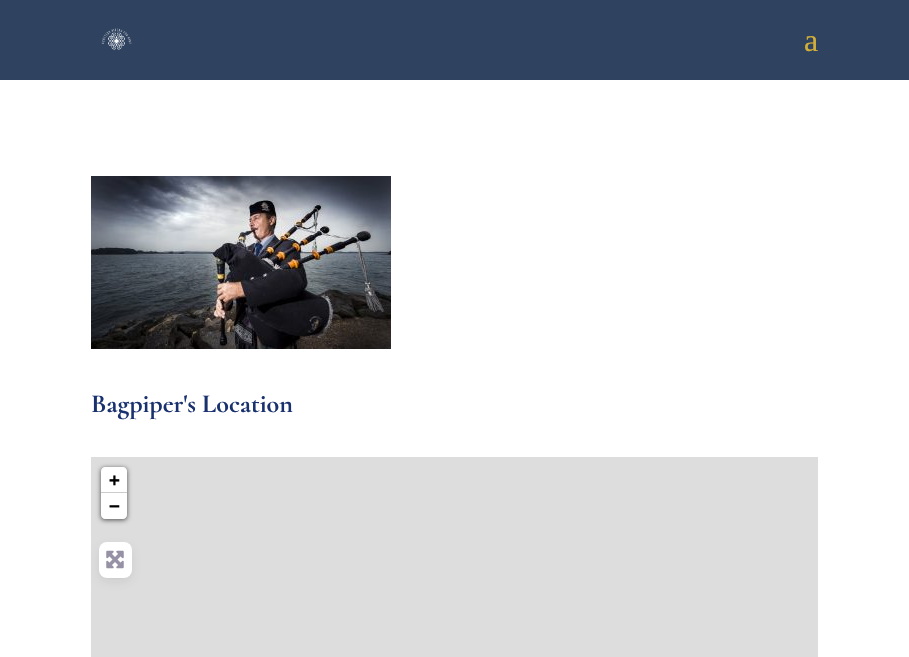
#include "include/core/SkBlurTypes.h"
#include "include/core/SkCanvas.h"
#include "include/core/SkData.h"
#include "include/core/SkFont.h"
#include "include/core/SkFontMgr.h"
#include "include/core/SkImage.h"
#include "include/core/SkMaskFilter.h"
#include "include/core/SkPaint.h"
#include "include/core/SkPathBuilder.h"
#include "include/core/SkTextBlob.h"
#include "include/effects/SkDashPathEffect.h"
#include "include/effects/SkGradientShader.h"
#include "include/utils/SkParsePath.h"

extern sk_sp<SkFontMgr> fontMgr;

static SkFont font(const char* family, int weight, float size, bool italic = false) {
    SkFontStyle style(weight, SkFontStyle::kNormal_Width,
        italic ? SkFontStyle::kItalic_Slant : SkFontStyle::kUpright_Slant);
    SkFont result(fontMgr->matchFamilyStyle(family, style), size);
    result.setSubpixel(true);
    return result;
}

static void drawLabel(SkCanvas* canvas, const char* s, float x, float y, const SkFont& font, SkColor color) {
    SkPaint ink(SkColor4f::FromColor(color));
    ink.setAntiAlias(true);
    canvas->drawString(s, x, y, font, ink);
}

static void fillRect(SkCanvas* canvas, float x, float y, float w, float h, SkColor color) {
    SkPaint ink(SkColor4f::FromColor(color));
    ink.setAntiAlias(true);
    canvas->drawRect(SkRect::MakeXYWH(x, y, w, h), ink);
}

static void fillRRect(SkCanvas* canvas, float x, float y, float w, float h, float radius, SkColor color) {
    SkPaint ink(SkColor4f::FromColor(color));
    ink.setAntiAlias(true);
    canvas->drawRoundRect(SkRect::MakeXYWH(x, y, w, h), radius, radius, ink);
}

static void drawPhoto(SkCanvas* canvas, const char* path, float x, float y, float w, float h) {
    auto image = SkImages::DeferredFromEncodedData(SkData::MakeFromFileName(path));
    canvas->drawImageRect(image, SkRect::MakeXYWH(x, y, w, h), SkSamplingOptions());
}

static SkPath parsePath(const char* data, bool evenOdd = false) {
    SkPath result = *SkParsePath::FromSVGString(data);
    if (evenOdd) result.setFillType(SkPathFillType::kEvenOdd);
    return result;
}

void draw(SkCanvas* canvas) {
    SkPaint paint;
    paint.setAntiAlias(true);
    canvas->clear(0xFFFFFFFF);
    fillRect(canvas, 0, 0, 909, 80, 0xFF2F4360);
    drawPhoto(canvas, "assets/img1.png", 101, 28, 31, 22);
    SkFont font1 = font("Liberation Serif", 400, 32);
    drawLabel(canvas, "a", 804, 51, font1, 0xFFD4AF37);
    drawPhoto(canvas, "assets/img2.png", 91, 176, 300, 173);
    SkFont font2 = font("Cormorant", 700, 26);
    drawLabel(canvas, "Bagpiper's Location", 91, 412, font2, 0xFF19316E);
    fillRect(canvas, 91, 457, 727, 200, 0xFFDDDDDD);
    paint.setColor(0xA6000000);
    paint.setMaskFilter(SkMaskFilter::MakeBlur(kNormal_SkBlurStyle, 2.5f));
    canvas->drawRoundRect(SkRect::MakeXYWH(101, 468, 26, 52), 4, 4, paint);
    paint.setMaskFilter(nullptr);
    paint.setColor(0xFFFFFFFF);
    canvas->drawPath(parsePath("M105 467H123C125 467 127 469 127 471V493H101V471C101 469 103 467 105 467Z"), paint);
    fillRect(canvas, 101, 492, 26, 1, 0xFFCCCCCC);
    SkFont font3 = font("DejaVu Sans Mono", 700, 18);
    drawLabel(canvas, "+", 109, 486, font3, 0xFF000000);
    canvas->drawPath(parsePath("M101 493H127V515C127 517 125 519 123 519H105C103 519 101 517 101 515Z"), paint);
    drawLabel(canvas, "−", 109, 512, font3, 0xFF000000);
    paint.setColor(0x141F1B2D);
    paint.setMaskFilter(SkMaskFilter::MakeBlur(kNormal_SkBlurStyle, 6));
    canvas->drawRoundRect(SkRect::MakeXYWH(99, 546, 33, 36), 8, 8, paint);
    paint.setMaskFilter(nullptr);
    paint.setMaskFilter(SkMaskFilter::MakeBlur(kNormal_SkBlurStyle, 1));
    canvas->drawRoundRect(SkRect::MakeXYWH(101, 546, 29, 32), 6, 6, paint);
    paint.setMaskFilter(nullptr);
    fillRRect(canvas, 99, 542, 33, 36, 8, 0xFFFFFFFF);
    drawPhoto(canvas, "assets/img3.png", 106, 550, 18, 19);
}
